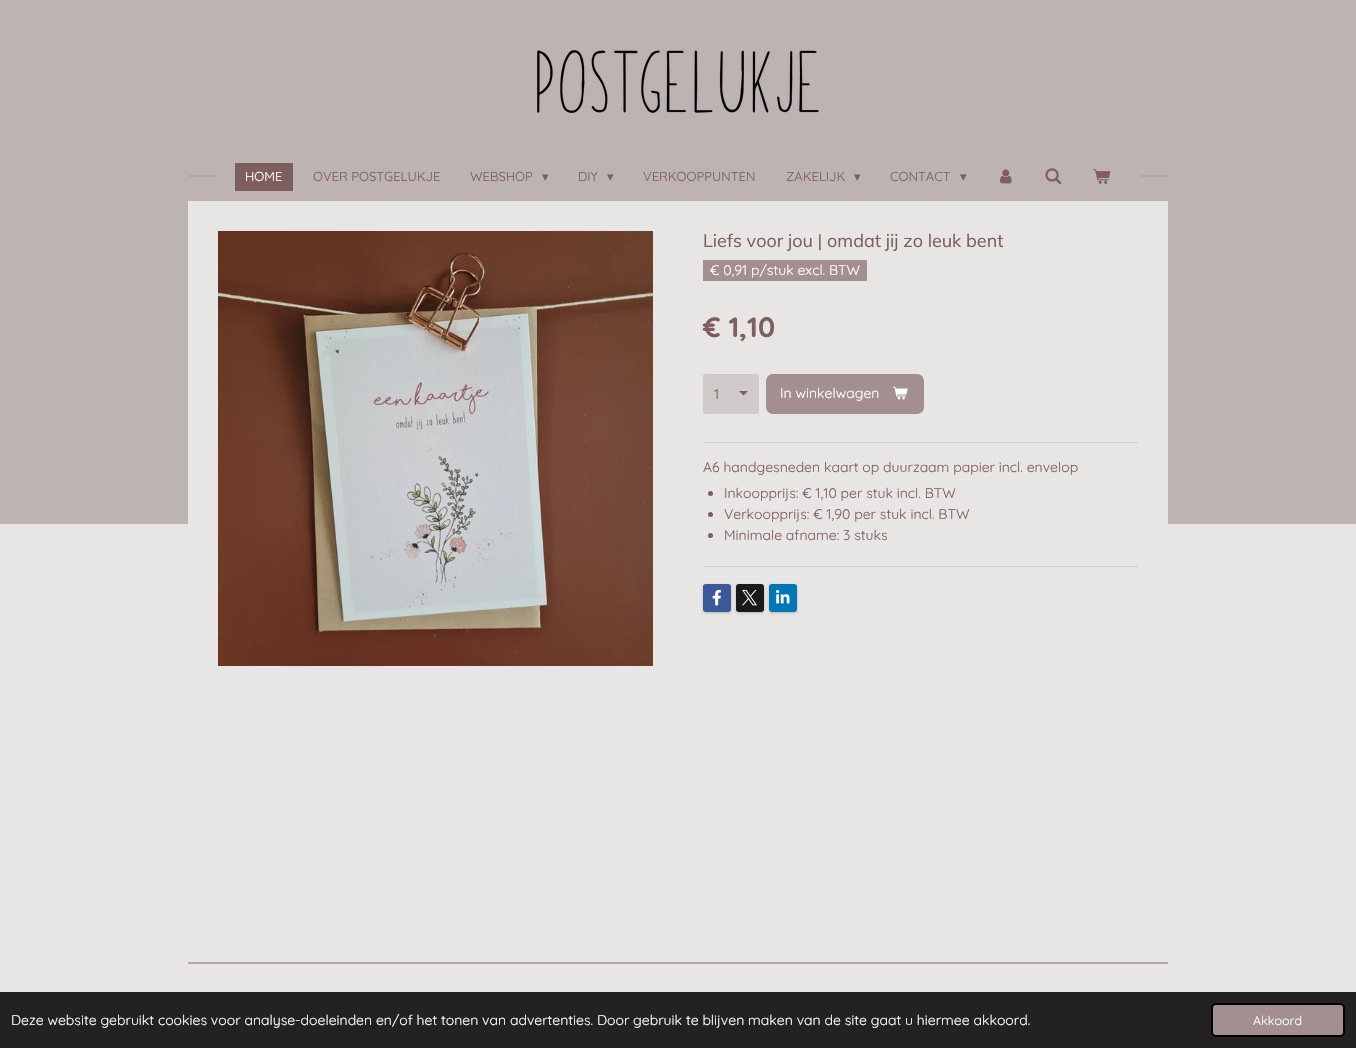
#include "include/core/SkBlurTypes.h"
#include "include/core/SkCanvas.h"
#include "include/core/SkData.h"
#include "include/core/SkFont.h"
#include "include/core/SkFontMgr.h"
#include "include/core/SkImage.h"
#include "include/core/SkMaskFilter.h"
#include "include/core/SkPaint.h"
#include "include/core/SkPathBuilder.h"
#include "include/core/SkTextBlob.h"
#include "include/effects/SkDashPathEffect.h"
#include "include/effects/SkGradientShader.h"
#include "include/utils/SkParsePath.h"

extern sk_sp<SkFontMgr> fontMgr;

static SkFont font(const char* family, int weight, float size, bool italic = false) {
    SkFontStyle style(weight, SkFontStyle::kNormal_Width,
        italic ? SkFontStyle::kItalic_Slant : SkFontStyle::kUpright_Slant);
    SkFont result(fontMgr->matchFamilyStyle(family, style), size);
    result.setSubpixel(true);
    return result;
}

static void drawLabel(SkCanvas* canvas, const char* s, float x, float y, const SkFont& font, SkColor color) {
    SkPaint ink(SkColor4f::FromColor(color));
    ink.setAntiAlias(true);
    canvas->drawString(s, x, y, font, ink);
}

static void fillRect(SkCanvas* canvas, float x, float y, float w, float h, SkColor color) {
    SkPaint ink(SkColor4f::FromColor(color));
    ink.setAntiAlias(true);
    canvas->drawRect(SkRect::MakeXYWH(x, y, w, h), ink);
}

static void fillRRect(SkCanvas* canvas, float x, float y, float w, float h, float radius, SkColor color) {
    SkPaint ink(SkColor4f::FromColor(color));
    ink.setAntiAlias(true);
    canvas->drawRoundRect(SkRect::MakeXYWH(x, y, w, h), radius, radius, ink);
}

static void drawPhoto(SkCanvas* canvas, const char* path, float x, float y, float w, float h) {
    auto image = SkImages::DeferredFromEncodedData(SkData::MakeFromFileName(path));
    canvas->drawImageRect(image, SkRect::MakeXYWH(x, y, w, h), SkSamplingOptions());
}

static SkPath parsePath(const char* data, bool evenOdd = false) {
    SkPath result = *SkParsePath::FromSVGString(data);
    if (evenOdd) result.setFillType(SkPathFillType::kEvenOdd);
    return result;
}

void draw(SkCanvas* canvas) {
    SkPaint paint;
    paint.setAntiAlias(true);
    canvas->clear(0xFFE8E5E5);
    fillRect(canvas, 0, 0, 1356, 524, 0xFFBEB3B3);
    drawPhoto(canvas, "assets/img1.png", 537, 50, 282, 63);
    fillRect(canvas, 188, 175, 27, 2, 0xFFB2A5A5);
    fillRect(canvas, 235, 163, 58, 28, 0xFF7E5E5E);
    SkFont font1 = font("Quicksand", 400, 13);
    drawLabel(canvas, "HOME", 245, 181, font1, 0xFFFFFFFF);
    drawLabel(canvas, "OVER POSTGELUKJE", 313, 181, font1, 0xFF7E5E5E);
    drawLabel(canvas, "WEBSHOP", 470, 181, font1, 0xFF7E5E5E);
    SkFont font2 = font("DejaVu Sans", 400, 13);
    drawLabel(canvas, "▾", 542, 181, font2, 0xFF7E5E5E);
    drawLabel(canvas, "DIY", 578, 181, font1, 0xFF7E5E5E);
    drawLabel(canvas, "▾", 607, 181, font2, 0xFF7E5E5E);
    drawLabel(canvas, "VERKOOPPUNTEN", 643, 181, font1, 0xFF7E5E5E);
    drawLabel(canvas, "ZAKELIJK", 786, 181, font1, 0xFF7E5E5E);
    drawLabel(canvas, "▾", 854, 181, font2, 0xFF7E5E5E);
    drawLabel(canvas, "CONTACT", 890, 181, font1, 0xFF7E5E5E);
    drawLabel(canvas, "▾", 960, 181, font2, 0xFF7E5E5E);
    drawPhoto(canvas, "assets/img2.png", 1000, 169, 12, 15);
    drawPhoto(canvas, "assets/img3.png", 1045, 168, 17, 17);
    drawPhoto(canvas, "assets/img4.png", 1093, 168, 18, 16);
    fillRect(canvas, 1141, 175, 27, 2, 0xFFB2A5A5);
    fillRect(canvas, 188, 201, 980, 323, 0xFFE8E5E5);
    drawPhoto(canvas, "assets/img5.png", 218, 231, 435, 435);
    SkFont font3 = font("Muli", 400, 18);
    drawLabel(canvas, "Liefs voor jou | omdat jij zo leuk bent", 703, 247, font3, 0xFF7E5E5E);
    fillRect(canvas, 703, 260, 164, 21, 0xFFA38F8F);
    SkFont font4 = font("Quicksand", 400, 14);
    drawLabel(canvas, "€ 0,91 p/stuk excl. BTW", 710, 275, font4, 0xFFFFFFFF);
    SkFont font5 = font("Quicksand", 700, 28);
    drawLabel(canvas, "€ 1,10", 703, 337, font5, 0xFF7E5E5E);
    fillRRect(canvas, 703, 374, 56, 40, 2, 0xFFD0CACA);
    paint.setColor(0xFF7E5E5E);
    canvas->drawPath(parsePath("M743.5 395.5L739 391H748Z"), paint);
    drawLabel(canvas, "1", 714, 399, font4, 0xFF7E5E5E);
    fillRRect(canvas, 766, 374, 158, 40, 7, 0xFFA38F8F);
    drawLabel(canvas, "In winkelwagen", 780, 398, font4, 0xFFFFFFFF);
    drawPhoto(canvas, "assets/img6.png", 893, 386, 15, 14);
    fillRect(canvas, 703, 442, 435, 1, 0xFFD3CACA);
    drawLabel(canvas, "A6 handgesneden kaart op duurzaam papier incl. envelop", 703, 472, font4, 0xFF7E5E5E);
    canvas->drawCircle(710.5f, 493.5f, 2.5f, paint);
    drawLabel(canvas, "Inkoopprijs: € 1,10 per stuk incl. BTW", 724, 498, font4, 0xFF7E5E5E);
    canvas->drawCircle(710.5f, 514.5f, 2.5f, paint);
    drawLabel(canvas, "Verkoopprijs: € 1,90 per stuk incl. BTW", 724, 519, font4, 0xFF7E5E5E);
    canvas->drawCircle(710.5f, 535.5f, 2.5f, paint);
    drawLabel(canvas, "Minimale afname: 3 stuks", 724, 540, font4, 0xFF7E5E5E);
    fillRect(canvas, 703, 566, 435, 1, 0xFFD3CACA);
    paint.setColor(0x33000000);
    paint.setMaskFilter(SkMaskFilter::MakeBlur(kNormal_SkBlurStyle, 1.5f));
    canvas->drawRoundRect(SkRect::MakeXYWH(703, 585, 28, 28), 3, 3, paint);
    paint.setMaskFilter(nullptr);
    fillRRect(canvas, 703, 584, 28, 28, 3, 0xFF3B5998);
    drawPhoto(canvas, "assets/img7.png", 712, 589, 9, 17);
    paint.setMaskFilter(SkMaskFilter::MakeBlur(kNormal_SkBlurStyle, 1.5f));
    canvas->drawRoundRect(SkRect::MakeXYWH(736, 585, 28, 28), 3, 3, paint);
    paint.setMaskFilter(nullptr);
    fillRRect(canvas, 736, 584, 28, 28, 3, 0xFF1A1A1A);
    drawPhoto(canvas, "assets/img8.png", 742, 589, 15, 17);
    paint.setMaskFilter(SkMaskFilter::MakeBlur(kNormal_SkBlurStyle, 1.5f));
    canvas->drawRoundRect(SkRect::MakeXYWH(769, 585, 28, 28), 3, 3, paint);
    paint.setMaskFilter(nullptr);
    fillRRect(canvas, 769, 584, 28, 28, 3, 0xFF0077B5);
    drawPhoto(canvas, "assets/img9.png", 776, 589, 14, 15);
    fillRect(canvas, 188, 962, 980, 2, 0xFFB2A5A5);
    fillRect(canvas, 0, 992, 1356, 56, 0xFF222222);
    drawLabel(canvas, "Deze website gebruikt cookies voor analyse-doeleinden en/of het tonen van advertenties. Door gebruik te blijven maken van de site gaat u hiermee akkoord.", 11, 1025, font4, 0xFFFFFFFF);
    paint.setColor(0xFFA38F8F);
    canvas->drawRoundRect(SkRect::MakeXYWH(1212, 1004, 132, 32), 4, 4, paint);
    paint.setStroke(true);
    paint.setStrokeWidth(2);
    paint.setColor(0xFF000000);
    canvas->drawRoundRect(SkRect::MakeXYWH(1212, 1004, 132, 32), 4, 4, paint);
    SkFont font6 = font("Quicksand", 400, 12.5f);
    drawLabel(canvas, "Akkoord", 1253, 1025, font6, 0xFFFFFFFF);
}
